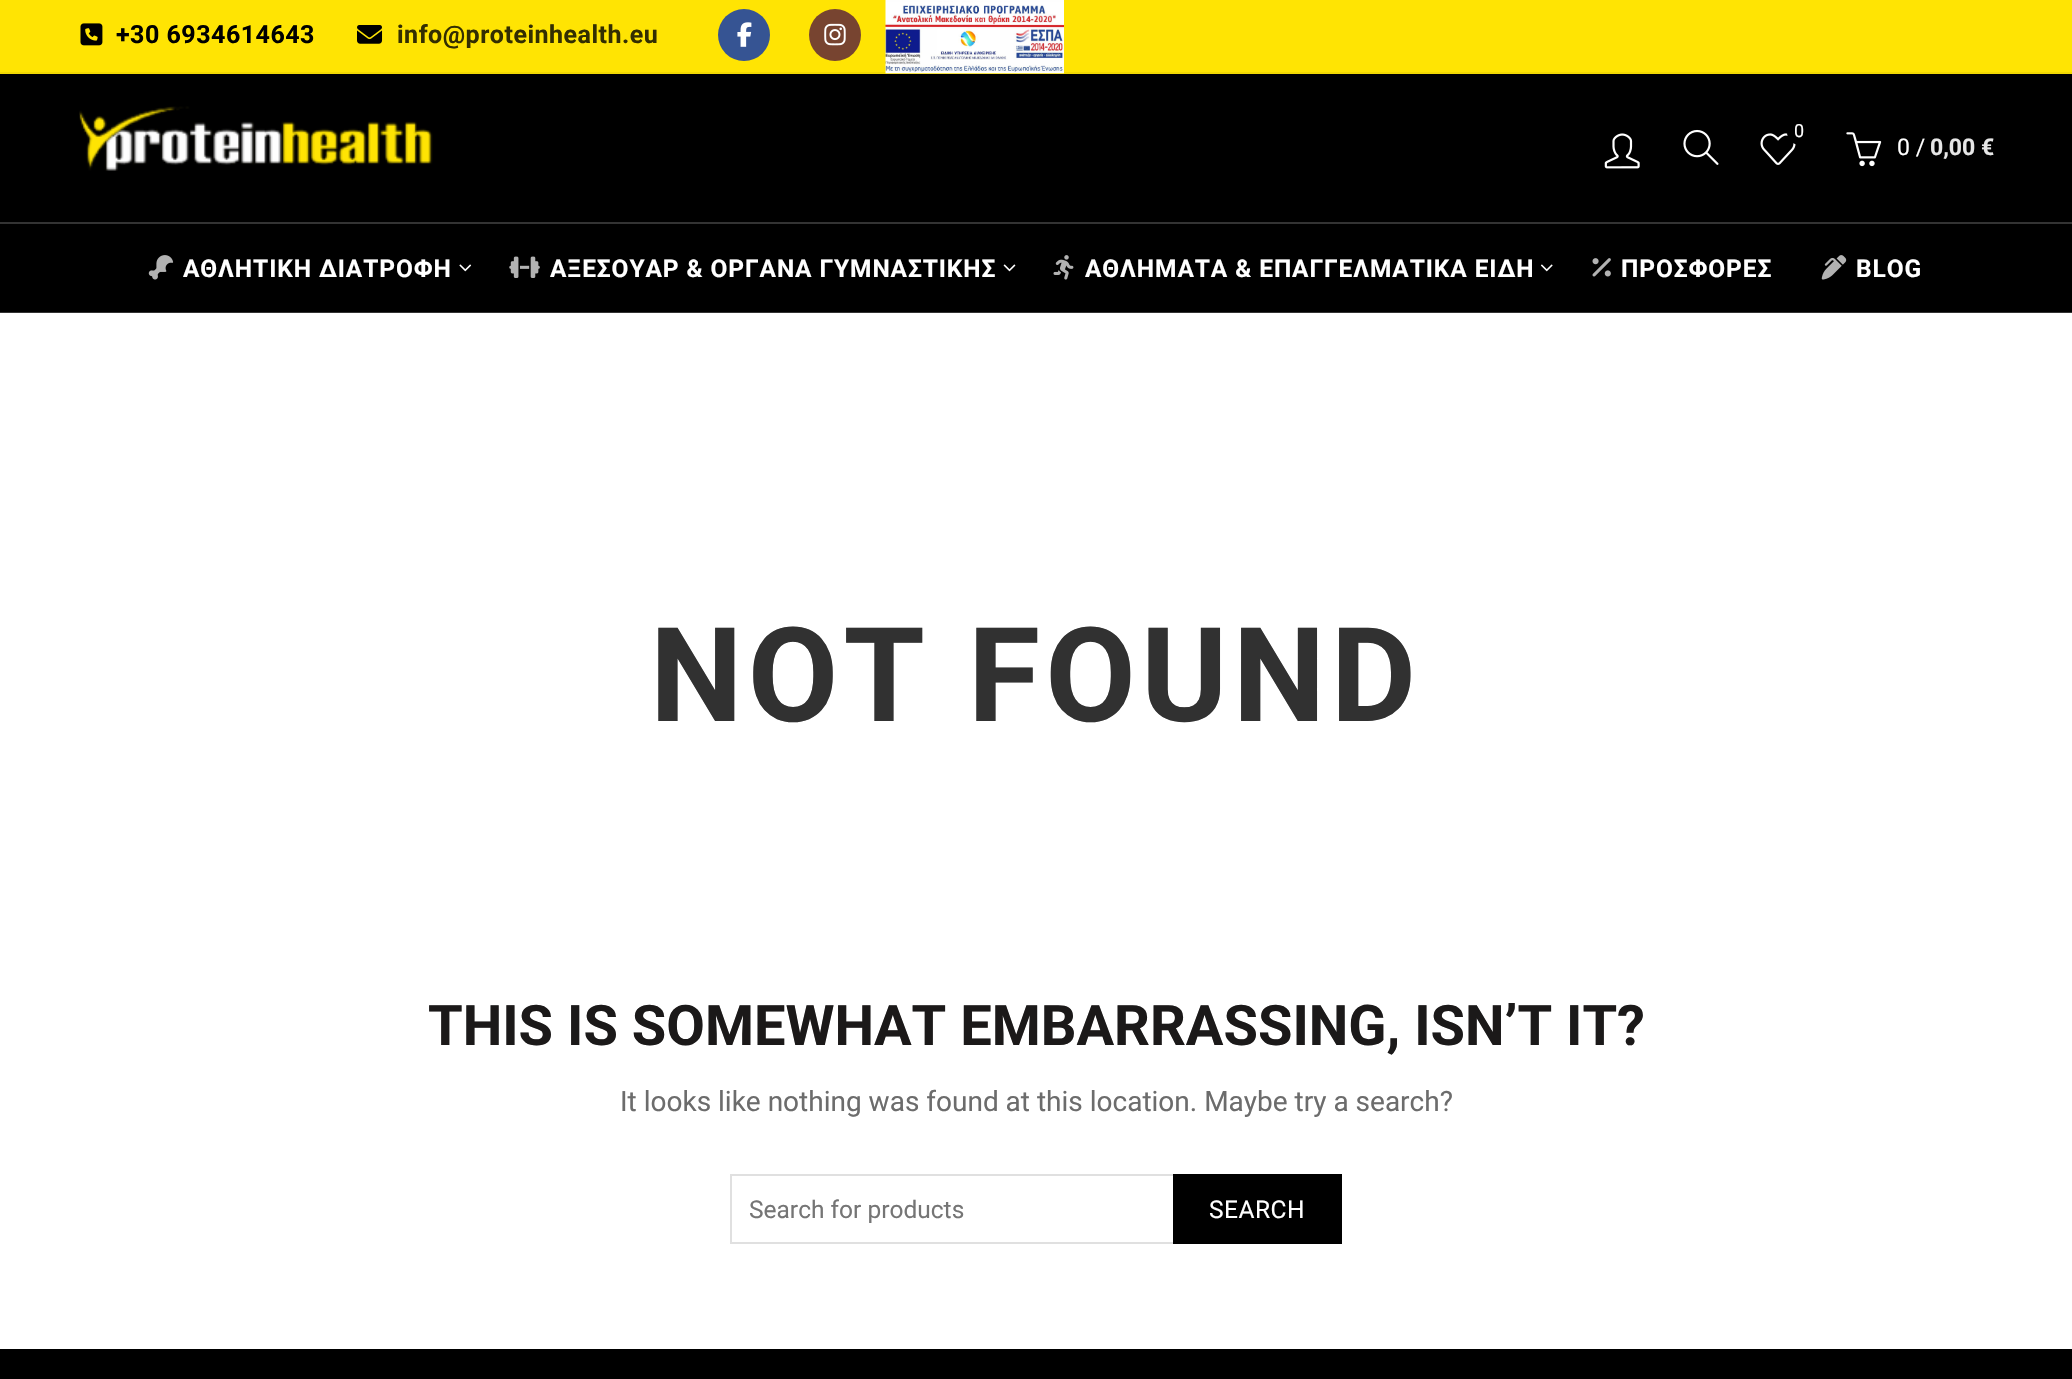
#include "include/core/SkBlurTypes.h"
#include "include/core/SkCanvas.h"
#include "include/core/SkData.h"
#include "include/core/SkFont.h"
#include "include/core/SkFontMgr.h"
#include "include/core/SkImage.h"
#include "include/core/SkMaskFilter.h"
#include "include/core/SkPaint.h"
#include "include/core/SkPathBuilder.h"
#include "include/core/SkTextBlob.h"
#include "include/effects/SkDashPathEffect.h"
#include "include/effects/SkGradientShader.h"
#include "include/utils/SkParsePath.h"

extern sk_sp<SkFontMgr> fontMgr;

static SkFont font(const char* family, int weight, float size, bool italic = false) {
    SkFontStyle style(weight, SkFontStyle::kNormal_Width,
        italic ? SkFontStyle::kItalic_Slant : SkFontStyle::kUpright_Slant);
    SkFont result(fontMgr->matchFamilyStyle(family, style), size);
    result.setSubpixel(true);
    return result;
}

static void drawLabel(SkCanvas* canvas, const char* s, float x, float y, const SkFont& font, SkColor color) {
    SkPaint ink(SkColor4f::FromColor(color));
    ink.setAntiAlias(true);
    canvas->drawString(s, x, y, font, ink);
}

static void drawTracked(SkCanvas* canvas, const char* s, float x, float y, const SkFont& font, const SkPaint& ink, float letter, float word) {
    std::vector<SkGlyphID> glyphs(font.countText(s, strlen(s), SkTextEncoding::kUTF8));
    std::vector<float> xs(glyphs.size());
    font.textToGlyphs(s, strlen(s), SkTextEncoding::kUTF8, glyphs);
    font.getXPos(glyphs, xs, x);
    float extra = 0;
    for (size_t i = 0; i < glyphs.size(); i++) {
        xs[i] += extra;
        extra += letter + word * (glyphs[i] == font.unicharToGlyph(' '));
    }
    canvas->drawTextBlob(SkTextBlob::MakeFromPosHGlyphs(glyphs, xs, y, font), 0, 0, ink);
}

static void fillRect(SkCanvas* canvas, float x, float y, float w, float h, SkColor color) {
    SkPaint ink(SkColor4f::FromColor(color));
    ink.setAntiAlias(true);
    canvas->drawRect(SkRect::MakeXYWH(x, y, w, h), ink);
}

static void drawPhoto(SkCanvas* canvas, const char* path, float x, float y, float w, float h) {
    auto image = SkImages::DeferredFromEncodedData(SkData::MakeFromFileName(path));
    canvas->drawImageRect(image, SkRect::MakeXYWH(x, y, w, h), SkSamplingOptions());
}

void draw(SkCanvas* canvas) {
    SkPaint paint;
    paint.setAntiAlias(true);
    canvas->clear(0xFFFFFFFF);
    fillRect(canvas, 0, 0, 2072, 72, 0xFFFFE403);
    fillRect(canvas, 0, 72, 2072, 2, 0xFFF2D903);
    drawPhoto(canvas, "assets/img1.png", 80, 23, 23, 23);
    SkFont font1 = font("Roboto", 700, 25);
    paint.setColor(0xFF000000);
    drawTracked(canvas, "+30 6934614643", 116, 43, font1, paint, 0.5f, 0);
    drawPhoto(canvas, "assets/img2.png", 357, 25, 26, 19);
    paint.setColor(0xFF332E01);
    drawTracked(canvas, "info@proteinhealth.eu", 397, 43, font1, paint, 0.5f, 0);
    paint.setColor(0xFF365493);
    canvas->drawCircle(744, 35, 26, paint);
    drawPhoto(canvas, "assets/img3.png", 737, 22, 15, 25);
    paint.setColor(0xFF774430);
    canvas->drawCircle(835, 35, 26, paint);
    drawPhoto(canvas, "assets/img4.png", 824, 23, 22, 23);
    drawPhoto(canvas, "assets/img5.png", 885, 0, 179, 74);
    fillRect(canvas, 0, 74, 2072, 238, 0xFF000000);
    fillRect(canvas, 0, 312, 2072, 1, 0xFF333333);
    drawPhoto(canvas, "assets/img6.png", 79, 106, 354, 65);
    drawPhoto(canvas, "assets/img7.png", 1604, 133, 36, 36);
    drawPhoto(canvas, "assets/img8.png", 1683, 129, 36, 36);
    drawPhoto(canvas, "assets/img9.png", 1760, 133, 36, 32);
    paint.setColor(0xFF000000);
    canvas->drawCircle(1800, 132, 13, paint);
    SkFont font2 = font("Roboto", 400, 18);
    drawLabel(canvas, "0", 1794, 137, font2, 0xFFFFFFFF);
    drawPhoto(canvas, "assets/img10.png", 1846, 132, 36, 35);
    SkFont font3 = font("Roboto", 400, 23);
    drawLabel(canvas, "0 /", 1897, 155, font3, 0xFFFFFFFF);
    SkFont font4 = font("Roboto", 700, 23);
    drawLabel(canvas, "0,00 €", 1930, 155, font4, 0xFFE6E6E6);
    fillRect(canvas, 0, 222, 2072, 2, 0xFF333333);
    drawPhoto(canvas, "assets/img11.png", 148, 255, 26, 25);
    SkFont font5 = font("Roboto", 700, 24.5f);
    paint.setColor(0xFFFFFFFF);
    drawTracked(canvas, "ΑΘΛΗΤΙΚΗ ΔΙΑΤΡΟΦΗ", 183, 277, font5, paint, 0.9f, 0);
    drawPhoto(canvas, "assets/img12.png", 459, 264, 13, 8);
    drawPhoto(canvas, "assets/img13.png", 509, 256, 31, 22);
    drawTracked(canvas, "ΑΞΕΣΟΥΑΡ & ΟΡΓΑΝΑ ΓΥΜΝΑΣΤΙΚΗΣ", 550, 277, font5, paint, 0.9f, 0);
    drawPhoto(canvas, "assets/img14.png", 1003, 264, 13, 8);
    drawPhoto(canvas, "assets/img15.png", 1053, 255, 21, 25);
    drawTracked(canvas, "ΑΘΛΗΜΑΤΑ & ΕΠΑΓΓΕΛΜΑΤΙΚΑ ΕΙΔΗ", 1085, 277, font5, paint, 0.9f, 0);
    drawPhoto(canvas, "assets/img16.png", 1540, 264, 13, 8);
    drawPhoto(canvas, "assets/img17.png", 1592, 258, 19, 19);
    drawTracked(canvas, "ΠΡΟΣΦΟΡΕΣ", 1621, 277, font5, paint, 0.9f, 0);
    drawPhoto(canvas, "assets/img18.png", 1821, 255, 26, 25);
    drawTracked(canvas, "BLOG", 1856, 277, font5, paint, 0.9f, 0);
    SkFont font6 = font("Roboto", 700, 131.25f);
    paint.setColor(0xFF313131);
    drawTracked(canvas, "NOT FOUND", 650, 721, font6, paint, 5.25f, 0);
    SkFont font7 = font("Roboto", 700, 56);
    drawLabel(canvas, "THIS IS SOMEWHAT EMBARRASSING, ISN’T IT?", 428, 1045, font7, 0xFF1B1919);
    SkFont font8 = font("Roboto", 400, 28);
    drawLabel(canvas, "It looks like nothing was found at this location. Maybe try a search?", 620, 1111, font8, 0xFF6C6C6C);
    paint.setStroke(true);
    paint.setStrokeWidth(2);
    paint.setColor(0xFFE0E0E0);
    canvas->drawRect(SkRect::MakeXYWH(731, 1175, 610, 68), paint);
    SkFont font9 = font("Roboto", 400, 24.5f);
    drawLabel(canvas, "Search for products", 749, 1218, font9, 0xFF757575);
    fillRect(canvas, 1173, 1174, 169, 70, 0xFF000000);
    paint.setStroke(false);
    paint.setColor(0xFFFFFFFF);
    drawTracked(canvas, "SEARCH", 1209, 1218, font9, paint, 0.5f, 0);
    fillRect(canvas, 0, 1349, 2072, 30, 0xFF000000);
}
